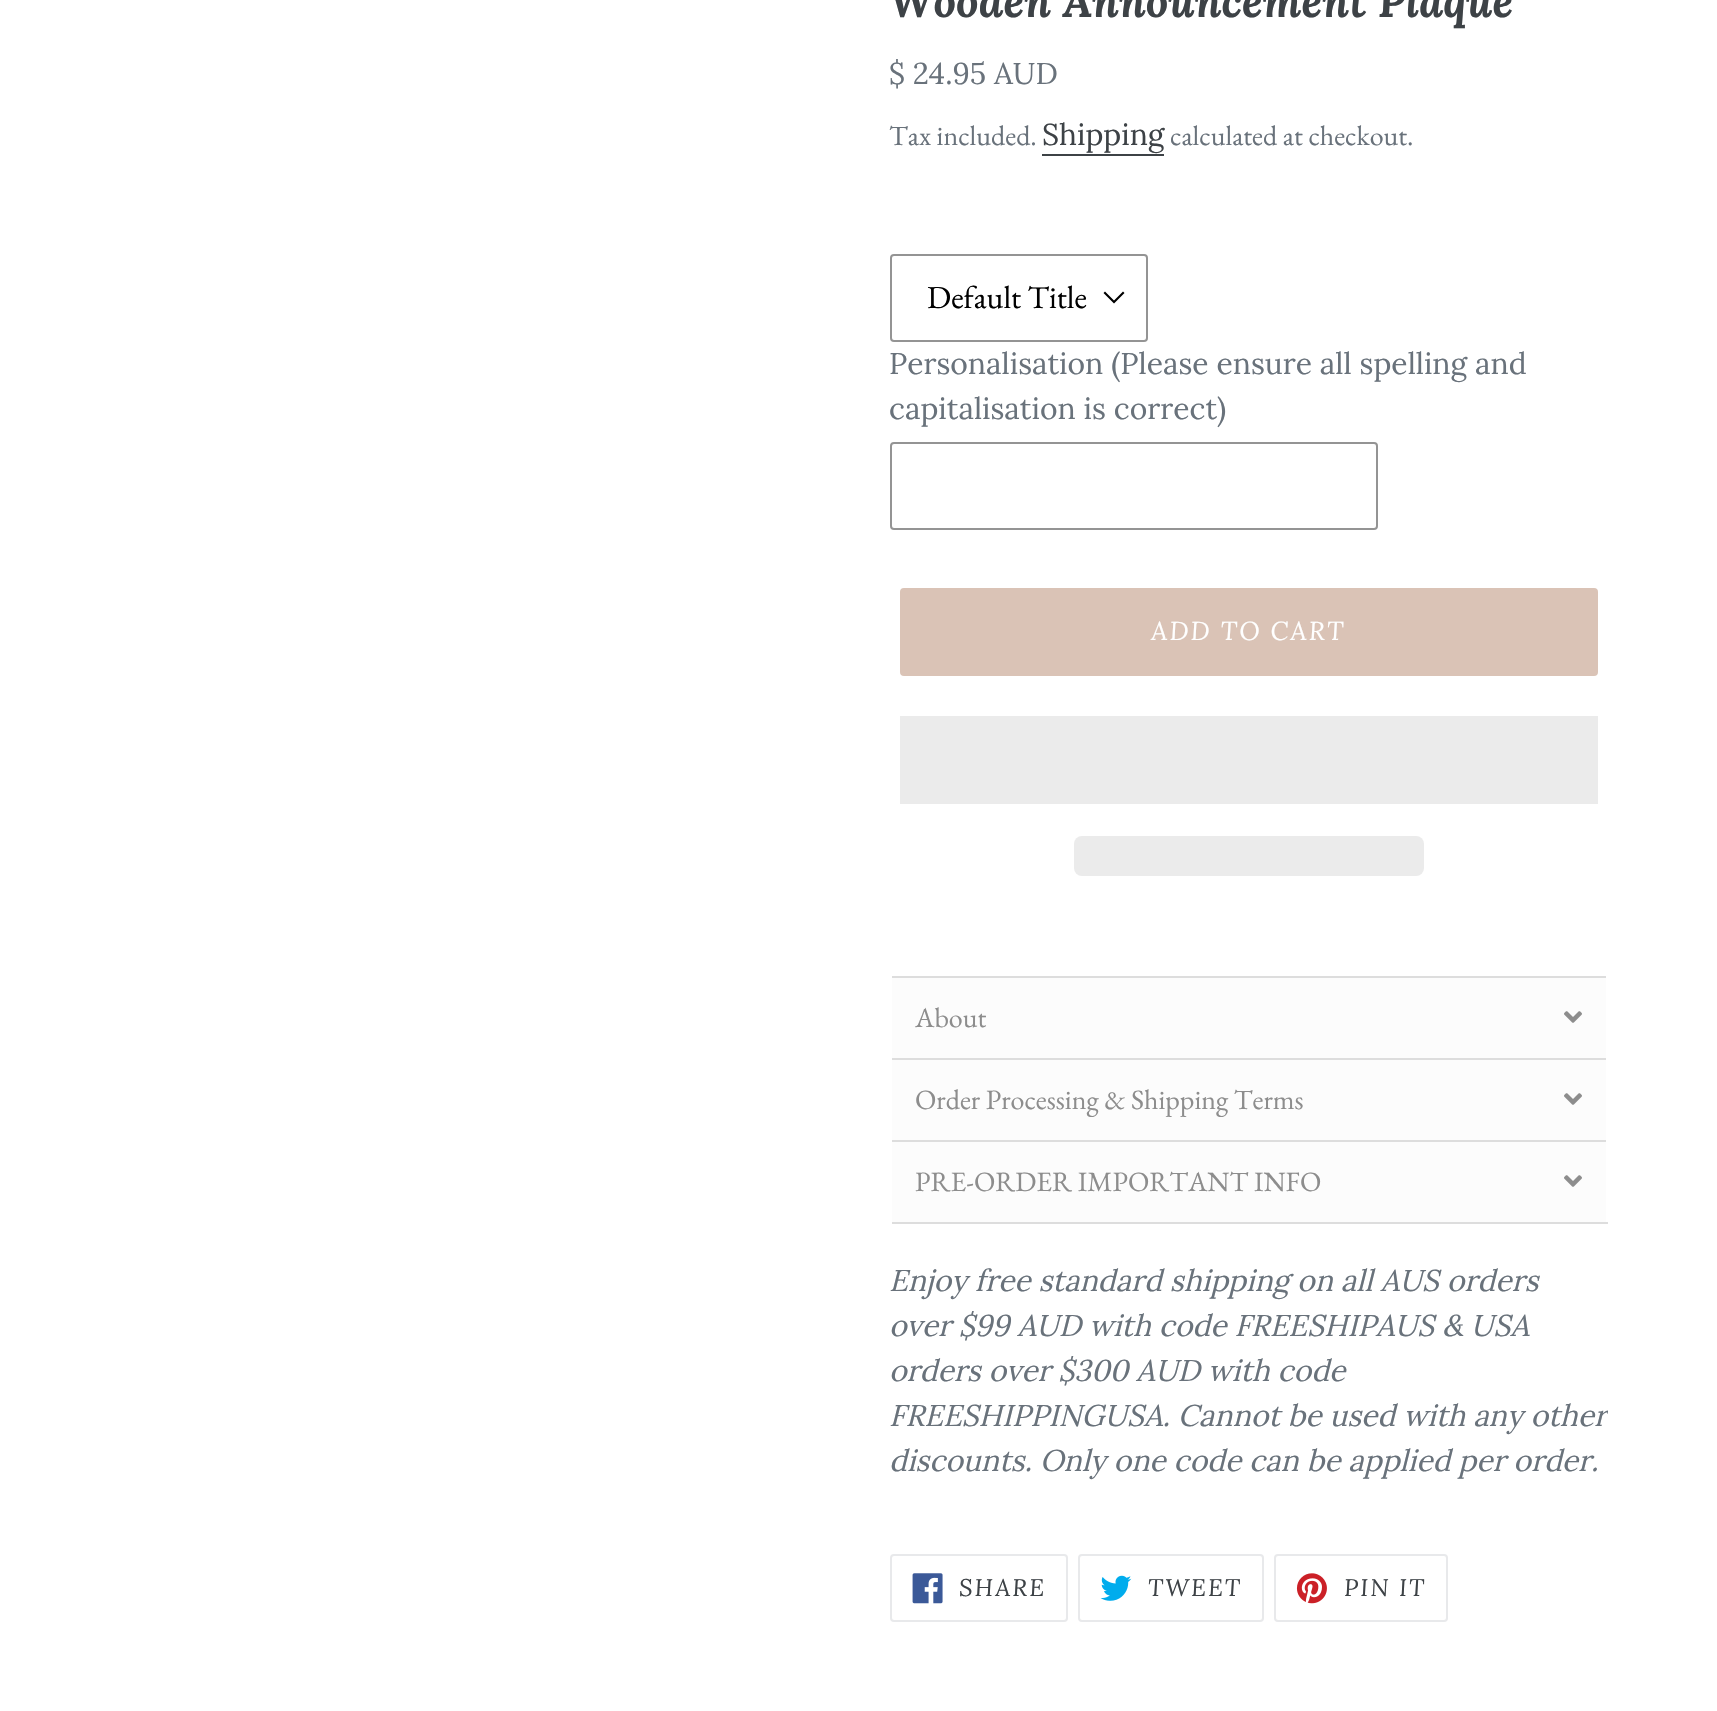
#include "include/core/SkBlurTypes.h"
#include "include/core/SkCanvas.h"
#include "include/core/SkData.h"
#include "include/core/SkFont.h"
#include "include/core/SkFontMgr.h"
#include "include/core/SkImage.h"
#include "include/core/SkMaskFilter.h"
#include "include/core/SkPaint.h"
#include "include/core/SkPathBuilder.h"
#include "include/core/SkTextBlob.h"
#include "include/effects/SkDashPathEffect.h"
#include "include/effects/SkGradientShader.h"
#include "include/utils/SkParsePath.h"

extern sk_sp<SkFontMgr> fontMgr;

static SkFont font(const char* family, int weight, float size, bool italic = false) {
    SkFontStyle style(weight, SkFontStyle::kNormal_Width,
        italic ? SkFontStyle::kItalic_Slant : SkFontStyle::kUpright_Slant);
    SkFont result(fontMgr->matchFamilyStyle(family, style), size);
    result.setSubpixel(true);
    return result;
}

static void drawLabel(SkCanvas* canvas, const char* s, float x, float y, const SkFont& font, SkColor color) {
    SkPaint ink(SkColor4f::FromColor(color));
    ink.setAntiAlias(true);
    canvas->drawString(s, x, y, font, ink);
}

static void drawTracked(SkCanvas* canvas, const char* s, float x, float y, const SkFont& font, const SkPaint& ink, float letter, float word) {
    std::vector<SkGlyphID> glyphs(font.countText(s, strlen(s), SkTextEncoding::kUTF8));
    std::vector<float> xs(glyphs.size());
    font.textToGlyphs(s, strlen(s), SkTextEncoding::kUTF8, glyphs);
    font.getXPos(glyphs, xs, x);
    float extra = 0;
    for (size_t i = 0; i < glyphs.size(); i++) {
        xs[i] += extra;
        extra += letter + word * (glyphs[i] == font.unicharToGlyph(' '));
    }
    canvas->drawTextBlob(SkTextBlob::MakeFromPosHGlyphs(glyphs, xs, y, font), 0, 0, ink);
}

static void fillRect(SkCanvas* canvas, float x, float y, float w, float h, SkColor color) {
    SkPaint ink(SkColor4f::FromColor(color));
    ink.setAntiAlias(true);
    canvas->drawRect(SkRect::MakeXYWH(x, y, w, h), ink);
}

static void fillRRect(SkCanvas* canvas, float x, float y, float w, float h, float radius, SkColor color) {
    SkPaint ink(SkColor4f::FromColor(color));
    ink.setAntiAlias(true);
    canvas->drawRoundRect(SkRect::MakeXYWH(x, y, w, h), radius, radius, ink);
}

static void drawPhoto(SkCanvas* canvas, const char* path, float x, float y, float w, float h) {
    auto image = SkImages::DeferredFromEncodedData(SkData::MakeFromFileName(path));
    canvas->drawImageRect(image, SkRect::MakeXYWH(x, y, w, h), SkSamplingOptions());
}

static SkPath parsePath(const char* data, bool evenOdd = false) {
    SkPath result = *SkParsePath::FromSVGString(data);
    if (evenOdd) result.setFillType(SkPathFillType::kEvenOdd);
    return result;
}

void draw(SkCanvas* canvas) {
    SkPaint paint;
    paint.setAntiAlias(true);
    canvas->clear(0xFFFFFFFF);
    SkFont font1 = font("Lora", 700, 44, true);
    drawLabel(canvas, "Wooden Announcement Plaque", 889, 17, font1, 0xFF3D4246);
    SkFont font2 = font("Lora", 400, 30);
    drawLabel(canvas, "$ 24.95 AUD", 889, 84, font2, 0xFF69727B);
    SkFont font3 = font("EB Garamond", 400, 28);
    drawLabel(canvas, "Tax included.", 889, 145, font3, 0xFF69727B);
    drawLabel(canvas, "Shipping", 1042, 145, font2, 0xFF3D4246);
    fillRect(canvas, 1042, 154, 122, 2, 0xFF3D4246);
    drawLabel(canvas, "calculated at checkout.", 1170, 145, font3, 0xFF69727B);
    paint.setColor(0xFF000000);
    canvas->drawPath(parsePath("M1114 303.5L1103.5 293L1105 291.5L1114 300.5L1123 291.5L1124.5 293Z"), paint);
    paint.setStroke(true);
    paint.setStrokeWidth(2);
    paint.setColor(0xFF949494);
    canvas->drawRoundRect(SkRect::MakeXYWH(891, 255, 256, 86), 3, 3, paint);
    SkFont font4 = font("EB Garamond", 400, 32);
    drawLabel(canvas, "Default Title", 927, 308, font4, 0xFF000000);
    drawLabel(canvas, "Personalisation (Please ensure all spelling and", 889, 374, font2, 0xFF69727B);
    drawLabel(canvas, "capitalisation is correct)", 889, 419, font2, 0xFF69727B);
    canvas->drawRoundRect(SkRect::MakeXYWH(891, 443, 486, 86), 3, 3, paint);
    paint.setStroke(false);
    paint.setColor(0xFFDAC3B6);
    canvas->drawRoundRect(SkRect::MakeXYWH(901, 589, 696, 86), 3, 3, paint);
    paint.setStroke(true);
    canvas->drawRoundRect(SkRect::MakeXYWH(901, 589, 696, 86), 3, 3, paint);
    SkFont font5 = font("Lora", 400, 26, true);
    paint.setStroke(false);
    paint.setColor(0xFFFFFFFF);
    drawTracked(canvas, "ADD TO CART", 1151, 640, font5, paint, 2, 0);
    fillRect(canvas, 900, 716, 698, 88, 0xFFEBEBEB);
    fillRRect(canvas, 1074, 836, 350, 40, 8, 0xFFEBEBEB);
    fillRect(canvas, 892, 978, 714, 80, 0xFFFCFCFC);
    fillRect(canvas, 890, 976, 718, 2, 0xFFDDDDDD);
    fillRect(canvas, 1606, 976, 2, 2, 0xFFFFFFFF);
    fillRect(canvas, 890, 976, 2, 2, 0xFFFFFFFF);
    drawLabel(canvas, "About", 915, 1027, font3, 0xFF8D8D8D);
    drawPhoto(canvas, "assets/img1.png", 1564, 1011, 18, 12);
    fillRect(canvas, 892, 1060, 714, 80, 0xFFFCFCFC);
    fillRect(canvas, 890, 1058, 718, 2, 0xFFDDDDDD);
    fillRect(canvas, 1606, 1058, 2, 2, 0xFFFFFFFF);
    fillRect(canvas, 890, 1058, 2, 2, 0xFFFFFFFF);
    drawLabel(canvas, "Order Processing & Shipping Terms", 915, 1109, font3, 0xFF8D8D8D);
    drawPhoto(canvas, "assets/img1.png", 1564, 1093, 18, 12);
    fillRect(canvas, 892, 1142, 714, 80, 0xFFFCFCFC);
    fillRect(canvas, 890, 1140, 718, 2, 0xFFDDDDDD);
    fillRect(canvas, 1606, 1140, 2, 2, 0xFFFFFFFF);
    fillRect(canvas, 890, 1222, 718, 2, 0xFFDDDDDD);
    fillRect(canvas, 890, 1140, 2, 84, 0xFFFFFFFF);
    drawLabel(canvas, "PRE-ORDER IMPORTANT INFO", 915, 1191, font3, 0xFF8D8D8D);
    drawPhoto(canvas, "assets/img1.png", 1564, 1175, 18, 12);
    SkFont font6 = font("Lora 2", 400, 30, true);
    drawLabel(canvas, "Enjoy free standard shipping on all AUS orders", 889, 1291, font6, 0xFF69727B);
    drawLabel(canvas, "over $99 AUD with code FREESHIPAUS & USA", 889, 1336, font6, 0xFF69727B);
    drawLabel(canvas, "orders over $300 AUD with code", 889, 1381, font6, 0xFF69727B);
    canvas->save();
    canvas->clipRect(SkRect::MakeXYWH(890, 1260, 718, 224));
    drawLabel(canvas, "FREESHIPPINGUSA. Cannot be used with any other", 889, 1426, font6, 0xFF69727B);
    canvas->restore();
    drawLabel(canvas, "discounts. Only one code can be applied per order.", 889, 1471, font6, 0xFF69727B);
    paint.setStroke(true);
    paint.setColor(0xFFE8E9EB);
    canvas->drawRoundRect(SkRect::MakeXYWH(891, 1555, 176, 66), 3, 3, paint);
    drawPhoto(canvas, "assets/img2.png", 912, 1573, 31, 31);
    SkFont font7 = font("Lora", 400, 24, true);
    paint.setStroke(false);
    paint.setColor(0xFF3D4246);
    drawTracked(canvas, "SHARE", 959, 1596, font7, paint, 2, 0);
    paint.setStroke(true);
    paint.setColor(0xFFE8E9EB);
    canvas->drawRoundRect(SkRect::MakeXYWH(1079, 1555, 184, 66), 3, 3, paint);
    drawPhoto(canvas, "assets/img3.png", 1100, 1575, 32, 26);
    paint.setStroke(false);
    paint.setColor(0xFF3D4246);
    drawTracked(canvas, "TWEET", 1148, 1596, font7, paint, 2, 0);
    paint.setStroke(true);
    paint.setColor(0xFFE8E9EB);
    canvas->drawRoundRect(SkRect::MakeXYWH(1275, 1555, 172, 66), 3, 3, paint);
    drawPhoto(canvas, "assets/img4.png", 1296, 1573, 31, 31);
    paint.setStroke(false);
    paint.setColor(0xFF3D4246);
    drawTracked(canvas, "PIN IT", 1344, 1596, font7, paint, 2, 0);
}
